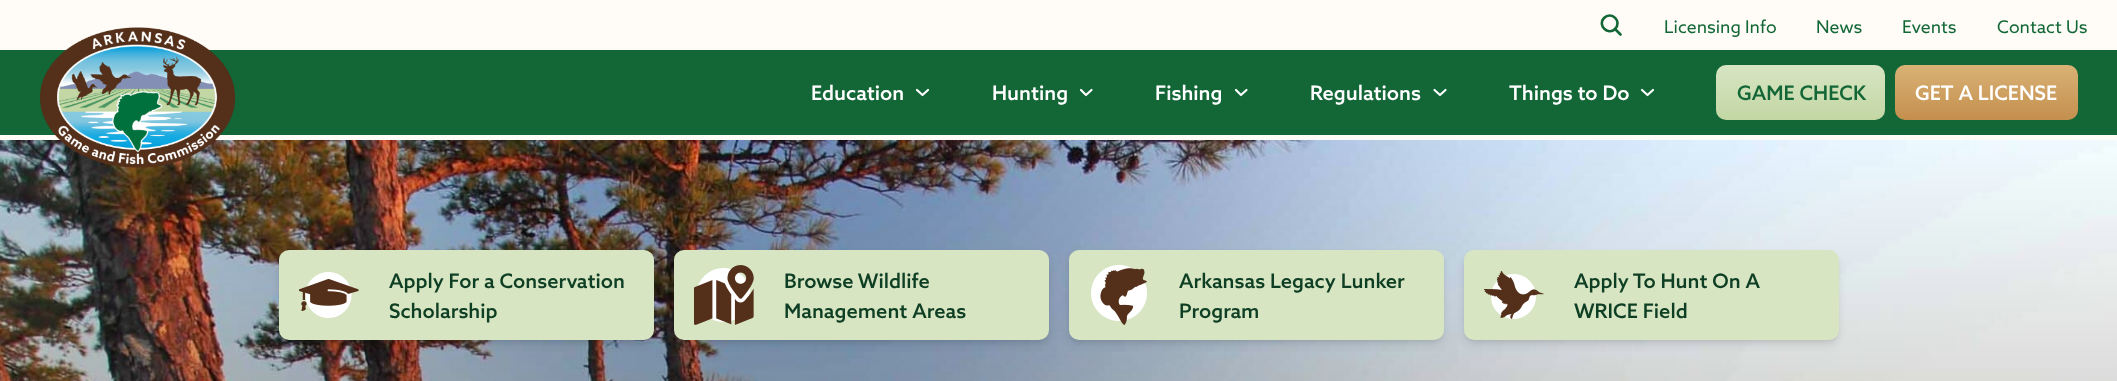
<svg xmlns="http://www.w3.org/2000/svg" width="2117" height="381">
<defs>
<linearGradient id="g1" gradientUnits="userSpaceOnUse" x1="1801" y1="65" x2="1801" y2="120"><stop offset="0" stop-color="#d7e5c3"/><stop offset="1" stop-color="#c3d7a4"/></linearGradient>
<linearGradient id="g2" gradientUnits="userSpaceOnUse" x1="1986" y1="65" x2="1986" y2="120"><stop offset="0" stop-color="#d9b275"/><stop offset="1" stop-color="#c48f4e"/></linearGradient>
</defs>
<rect width="100%" height="100%" fill="#fffcf7"/>
<path d="M1620.5 34.5l-5.5-5.5m0 0c7.5-7.5-3.5-18.5-11-11c-7 7 4 18 11 11z" fill="none" stroke="#136737" stroke-width="2.6" stroke-linecap="round" stroke-linejoin="round"/>
<text x="1664" y="33" style="font-family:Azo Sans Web;font-size:17.5px;fill:#136737">Licensing Info</text>
<text x="1816" y="33" style="font-family:Azo Sans Web;font-size:17.5px;fill:#136737">News</text>
<text x="1902" y="33" style="font-family:Azo Sans Web;font-size:17.5px;fill:#136737">Events</text>
<text x="1997" y="33" style="font-family:Azo Sans Web;font-size:17.5px;fill:#136737">Contact Us</text>
<rect y="50" width="2117" height="85" fill="#136737"/>
<image x="0" y="140" width="2117" height="241" href="media/2.png"/>
<image x="40" y="27" width="195" height="141" href="media/1.png"/>
<text x="811" y="100" style="font-family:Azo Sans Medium;font-size:20px;font-weight:500;fill:#fff">Education</text>
<path d="M928 90l-5.5 5l-5.5-5" fill="none" stroke="#fff" stroke-width="2.2" stroke-linecap="round" stroke-linejoin="round"/>
<text x="992" y="100" style="font-family:Azo Sans Medium;font-size:20px;font-weight:500;fill:#fff">Hunting</text>
<path d="M1091.5 90l-5.5 5l-5-5" fill="none" stroke="#fff" stroke-width="2.2" stroke-linecap="round" stroke-linejoin="round"/>
<text x="1155" y="100" style="font-family:Azo Sans Medium;font-size:20px;font-weight:500;fill:#fff">Fishing</text>
<path d="M1246.5 90l-5.5 5l-5-5" fill="none" stroke="#fff" stroke-width="2.2" stroke-linecap="round" stroke-linejoin="round"/>
<text x="1310" y="100" style="font-family:Azo Sans Medium;font-size:20px;font-weight:500;fill:#fff">Regulations</text>
<path d="M1445.5 90l-5.5 5l-5.5-5" fill="none" stroke="#fff" stroke-width="2.2" stroke-linecap="round" stroke-linejoin="round"/>
<text x="1509" y="100" style="font-family:Azo Sans Medium;font-size:20px;font-weight:500;fill:#fff">Things to Do</text>
<path d="M1653 90l-5.5 5l-5.5-5" fill="none" stroke="#fff" stroke-width="2.2" stroke-linecap="round" stroke-linejoin="round"/>
<rect x="1716" y="65" width="169" height="55" rx="10" fill="url(#g1)"/>
<text x="1737" y="100" style="font-family:Azo Sans Medium;font-size:20px;font-weight:500;fill:#136737">GAME CHECK</text>
<rect x="1895" y="65" width="183" height="55" rx="10" fill="url(#g2)"/>
<text x="1915" y="100" style="font-family:Azo Sans Medium;font-size:20px;font-weight:500;fill:#fff">GET A LICENSE</text>
<rect x="281" y="255" width="370" height="85" rx="8" fill="#0000001a" filter="blur(2.5px)"/>
<rect x="280" y="256" width="373" height="88" rx="9" fill="#0000001a" filter="blur(4px)"/>
<rect x="279" y="250" width="375" height="90" rx="10" fill="#d7e5c3"/>
<image x="299" y="272" width="60" height="46" href="media/3.png"/>
<text x="389" y="288" style="font-family:Azo Sans Medium;font-size:20px;font-weight:500;fill:#0e3e23">Apply For a Conservation</text>
<text x="389" y="318" style="font-family:Azo Sans Medium;font-size:20px;font-weight:500;fill:#0e3e23">Scholarship</text>
<rect x="676" y="255" width="370" height="85" rx="8" fill="#0000001a" filter="blur(2.5px)"/>
<rect x="675" y="256" width="373" height="88" rx="9" fill="#0000001a" filter="blur(4px)"/>
<rect x="674" y="250" width="375" height="90" rx="10" fill="#d7e5c3"/>
<image x="694" y="265" width="60" height="60" href="media/4.png"/>
<text x="784" y="288" style="font-family:Azo Sans Medium;font-size:20px;font-weight:500;fill:#0e3e23">Browse Wildlife</text>
<text x="784" y="318" style="font-family:Azo Sans Medium;font-size:20px;font-weight:500;fill:#0e3e23">Management Areas</text>
<rect x="1071" y="255" width="370" height="85" rx="8" fill="#0000001a" filter="blur(2.5px)"/>
<rect x="1070" y="256" width="373" height="88" rx="9" fill="#0000001a" filter="blur(4px)"/>
<rect x="1069" y="250" width="375" height="90" rx="10" fill="#d7e5c3"/>
<image x="1091" y="265" width="56" height="60" href="media/5.png"/>
<text x="1179" y="288" style="font-family:Azo Sans Medium;font-size:20px;font-weight:500;fill:#0e3e23">Arkansas Legacy Lunker</text>
<text x="1179" y="318" style="font-family:Azo Sans Medium;font-size:20px;font-weight:500;fill:#0e3e23">Program</text>
<rect x="1466" y="255" width="370" height="85" rx="8" fill="#0000001a" filter="blur(2.5px)"/>
<rect x="1465" y="256" width="373" height="88" rx="9" fill="#0000001a" filter="blur(4px)"/>
<rect x="1464" y="250" width="375" height="90" rx="10" fill="#d7e5c3"/>
<image x="1484" y="271" width="60" height="48" href="media/6.png"/>
<text x="1574" y="288" style="font-family:Azo Sans Medium;font-size:20px;font-weight:500;fill:#0e3e23">Apply To Hunt On A</text>
<text x="1574" y="318" style="font-family:Azo Sans Medium;font-size:20px;font-weight:500;fill:#0e3e23">WRICE Field</text>
</svg>
